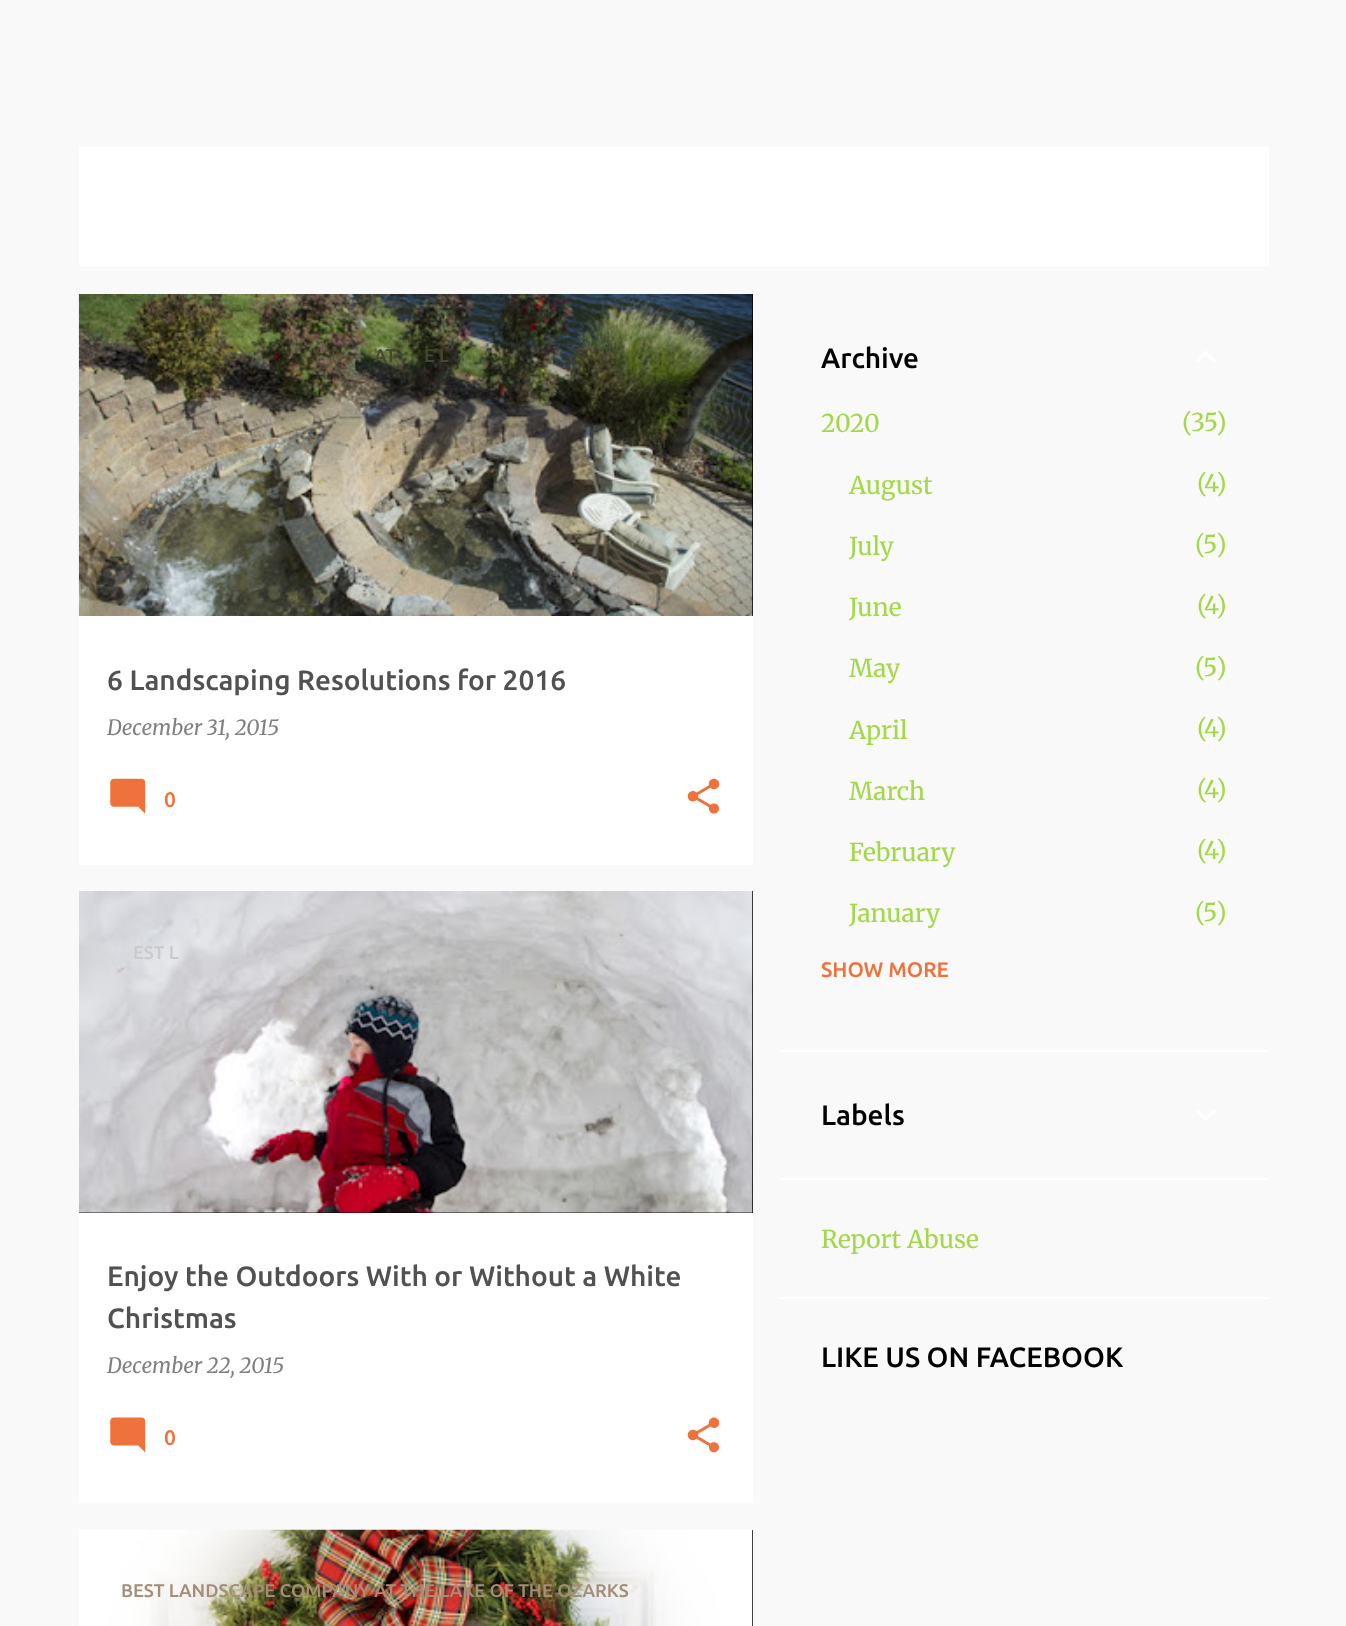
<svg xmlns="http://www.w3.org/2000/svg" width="1346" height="1626">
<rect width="100%" height="100%" fill="#f9f9f9"/>
<rect x="79" y="147" width="1190" height="119" fill="#fff"/>
<rect x="79" y="616" width="674" height="249" fill="#fff"/>
<rect x="752" y="294" width="1" height="322" fill="#000"/>
<image x="78" y="294" width="675" height="322" href="media/1.png"/>
<text x="374" y="362" style="font-family:Ubuntu;font-size:18.4px;font-weight:500;fill:#45482d">AT</text>
<text x="424" y="362" style="font-family:Ubuntu;font-size:18.4px;font-weight:500;fill:#45482d">E L</text>
<text x="107" y="735" style="font-family:Merriweather;font-size:21px;font-style:italic;fill:#808080">December 31, 2015</text>
<text x="107" y="690" style="font-family:Ubuntu;font-size:28px;font-weight:500;fill:#515151">6 Landscaping Resolutions for 2016</text>
<image x="110" y="778" width="36" height="36" href="media/2.png"/>
<text x="164" y="807" style="font-family:Ubuntu;font-size:21px;font-weight:500;fill:#ef713c">0</text>
<image x="687" y="778" width="33" height="36" href="media/3.png"/>
<rect x="79" y="1213" width="674" height="290" fill="#fff"/>
<rect x="79" y="891" width="674" height="322" fill="#000"/>
<image x="79" y="891" width="674" height="322" href="media/4.png"/>
<text x="133" y="959" style="font-family:Ubuntu;font-size:18.4px;font-weight:500;fill:#cacacc">EST L</text>
<text x="107" y="1373" style="font-family:Merriweather;font-size:21px;font-style:italic;fill:#808080">December 22, 2015</text>
<text x="107" y="1286" style="font-family:Ubuntu;font-size:28px;font-weight:500;fill:#515151">Enjoy the Outdoors With or Without a White</text>
<text x="107" y="1328" style="font-family:Ubuntu;font-size:28px;font-weight:500;fill:#515151">Christmas</text>
<image x="110" y="1417" width="36" height="36" href="media/5.png"/>
<text x="164" y="1445" style="font-family:Ubuntu;font-size:21px;font-weight:500;fill:#ef713c">0</text>
<image x="687" y="1417" width="33" height="36" href="media/6.png"/>
<rect x="752" y="1530" width="1" height="96" fill="#000"/>
<image x="79" y="1529" width="674" height="97" href="media/7.png"/>
<text x="121" y="1597" style="font-family:Ubuntu;font-size:18.4px;font-weight:500;fill:#a48e78">BEST LANDSCAPE COMPANY AT THE LAKE OF THE OZARKS</text>
<text x="821" y="368" style="font-family:Ubuntu;font-size:28px;font-weight:500;fill:#000">Archive</text>
<image x="1196" y="350" width="20" height="13" href="media/8.png"/>
<text x="821" y="432" style="font-family:Merriweather;font-size:24.5px;font-weight:300;fill:#a3d848">2020</text>
<text x="1182" y="431" style="font-family:Merriweather;font-size:24.5px;font-weight:300;fill:#a3d848">(</text>
<text x="1191" y="431" style="font-family:Merriweather;font-size:24.5px;font-weight:300;fill:#a3d848">35</text>
<text x="1216" y="431" style="font-family:Merriweather;font-size:24.5px;font-weight:300;fill:#a3d848">)</text>
<text x="849" y="494" style="font-family:Merriweather;font-size:24.5px;font-weight:300;fill:#a3d848">August</text>
<text x="1197" y="492" style="font-family:Merriweather;font-size:24.5px;font-weight:300;fill:#a3d848">(</text>
<text x="1204" y="492" style="font-family:Merriweather;font-size:24.5px;font-weight:300;fill:#a3d848">4</text>
<text x="1216" y="492" style="font-family:Merriweather;font-size:24.5px;font-weight:300;fill:#a3d848">)</text>
<text x="849" y="555" style="font-family:Merriweather;font-size:24.5px;font-weight:300;fill:#a3d848">July</text>
<text x="1195" y="553" style="font-family:Merriweather;font-size:24.5px;font-weight:300;fill:#a3d848">(</text>
<text x="1203" y="553" style="font-family:Merriweather;font-size:24.5px;font-weight:300;fill:#a3d848">5</text>
<text x="1216" y="553" style="font-family:Merriweather;font-size:24.5px;font-weight:300;fill:#a3d848">)</text>
<text x="849" y="616" style="font-family:Merriweather;font-size:24.5px;font-weight:300;fill:#a3d848">June</text>
<text x="1197" y="614" style="font-family:Merriweather;font-size:24.5px;font-weight:300;fill:#a3d848">(</text>
<text x="1204" y="614" style="font-family:Merriweather;font-size:24.5px;font-weight:300;fill:#a3d848">4</text>
<text x="1216" y="614" style="font-family:Merriweather;font-size:24.5px;font-weight:300;fill:#a3d848">)</text>
<text x="849" y="677" style="font-family:Merriweather;font-size:24.5px;font-weight:300;fill:#a3d848">May</text>
<text x="1195" y="676" style="font-family:Merriweather;font-size:24.5px;font-weight:300;fill:#a3d848">(</text>
<text x="1203" y="676" style="font-family:Merriweather;font-size:24.5px;font-weight:300;fill:#a3d848">5</text>
<text x="1216" y="676" style="font-family:Merriweather;font-size:24.5px;font-weight:300;fill:#a3d848">)</text>
<text x="849" y="739" style="font-family:Merriweather;font-size:24.5px;font-weight:300;fill:#a3d848">April</text>
<text x="1197" y="737" style="font-family:Merriweather;font-size:24.5px;font-weight:300;fill:#a3d848">(</text>
<text x="1204" y="737" style="font-family:Merriweather;font-size:24.5px;font-weight:300;fill:#a3d848">4</text>
<text x="1216" y="737" style="font-family:Merriweather;font-size:24.5px;font-weight:300;fill:#a3d848">)</text>
<text x="849" y="800" style="font-family:Merriweather;font-size:24.5px;font-weight:300;fill:#a3d848">March</text>
<text x="1197" y="798" style="font-family:Merriweather;font-size:24.5px;font-weight:300;fill:#a3d848">(</text>
<text x="1204" y="798" style="font-family:Merriweather;font-size:24.5px;font-weight:300;fill:#a3d848">4</text>
<text x="1216" y="798" style="font-family:Merriweather;font-size:24.5px;font-weight:300;fill:#a3d848">)</text>
<text x="849" y="861" style="font-family:Merriweather;font-size:24.5px;font-weight:300;fill:#a3d848">February</text>
<text x="1197" y="859" style="font-family:Merriweather;font-size:24.5px;font-weight:300;fill:#a3d848">(</text>
<text x="1204" y="859" style="font-family:Merriweather;font-size:24.5px;font-weight:300;fill:#a3d848">4</text>
<text x="1216" y="859" style="font-family:Merriweather;font-size:24.5px;font-weight:300;fill:#a3d848">)</text>
<text x="849" y="922" style="font-family:Merriweather;font-size:24.5px;font-weight:300;fill:#a3d848">January</text>
<text x="1195" y="921" style="font-family:Merriweather;font-size:24.5px;font-weight:300;fill:#a3d848">(</text>
<text x="1203" y="921" style="font-family:Merriweather;font-size:24.5px;font-weight:300;fill:#a3d848">5</text>
<text x="1216" y="921" style="font-family:Merriweather;font-size:24.5px;font-weight:300;fill:#a3d848">)</text>
<text x="821" y="977" style="font-family:Ubuntu;font-size:21px;font-weight:500;fill:#ef713c">SHOW MORE</text>
<rect x="779" y="1050" width="490" height="2" fill="#fff"/>
<text x="821" y="1125" style="font-family:Ubuntu;font-size:28px;font-weight:500;fill:#000">Labels</text>
<image x="1196" y="1109" width="20" height="12" href="media/9.png"/>
<rect x="779" y="1178" width="490" height="2" fill="#fff"/>
<text x="821" y="1248" style="font-family:Merriweather;font-size:24.5px;font-weight:300;fill:#a3d848">Report Abuse</text>
<rect x="779" y="1297" width="490" height="2" fill="#fff"/>
<text x="821" y="1367" style="font-family:Ubuntu;font-size:28px;font-weight:500;fill:#000">LIKE US ON FACEBOOK</text>
</svg>
